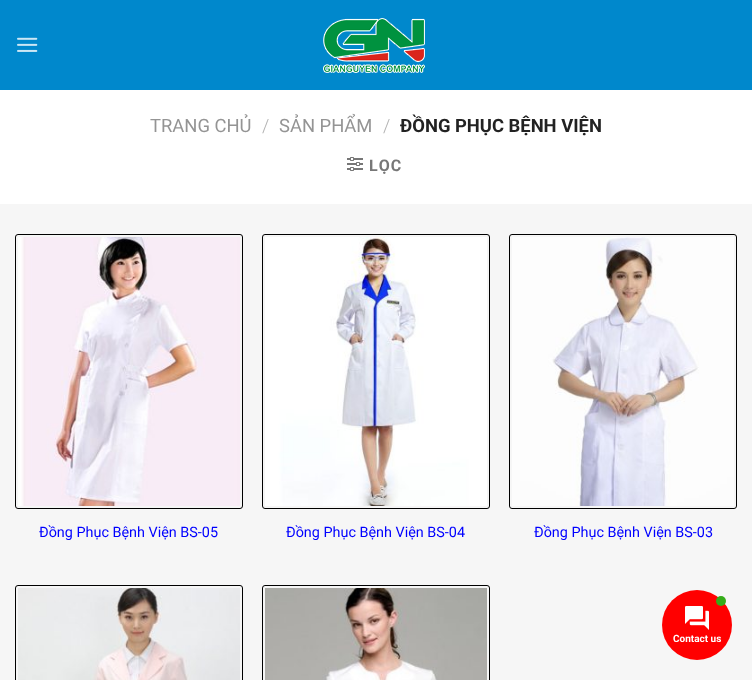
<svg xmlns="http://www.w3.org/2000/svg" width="752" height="680">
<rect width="100%" height="100%" fill="#fff"/>
<rect width="752" height="90" fill="#08c"/>
<image x="17" y="37" width="21" height="15" href="media/1.png"/>
<image x="323" y="18" width="102" height="55" href="media/2.png"/>
<text x="150" y="132" style="font-family:Roboto;font-size:18.4px;fill:#949494">TRANG CHỦ</text>
<text x="262" y="132" style="font-family:Roboto;font-size:18.4px;font-weight:300;fill:#b2b2b2">/</text>
<text x="279" y="132" style="font-family:Roboto;font-size:18.4px;fill:#949494">SẢN PHẨM</text>
<text x="383" y="132" style="font-family:Roboto;font-size:18.4px;font-weight:300;fill:#b2b2b2">/</text>
<text x="400" y="132" style="font-family:Roboto;font-size:18.4px;font-weight:bold;fill:#222">ĐỒNG PHỤC BỆNH VIỆN</text>
<image x="347" y="157" width="16" height="14" href="media/3.png"/>
<text x="369" y="171" style="font-family:Roboto;font-size:16px;font-weight:bold;letter-spacing:1px;fill:#777">LỌC</text>
<rect y="204" width="752" height="476" fill="#f6f6f6"/>
<rect x="15.5" y="234.5" width="227" height="274" rx="2.5" fill="none" stroke="#000"/>
<image x="18" y="237" width="222" height="269" href="media/4.png"/>
<text x="39" y="537" style="font-family:Roboto;font-size:14.4px;fill:#00f">Đồng Phục Bệnh Viện BS-05</text>
<rect x="262.5" y="234.5" width="227" height="274" rx="2.5" fill="none" stroke="#000"/>
<image x="265" y="237" width="222" height="269" href="media/5.png"/>
<text x="286" y="537" style="font-family:Roboto;font-size:14.4px;fill:#00f">Đồng Phục Bệnh Viện BS-04</text>
<rect x="509.5" y="234.5" width="227" height="274" rx="2.5" fill="none" stroke="#000"/>
<image x="512" y="237" width="222" height="269" href="media/6.png"/>
<text x="534" y="537" style="font-family:Roboto;font-size:14.4px;fill:#00f">Đồng Phục Bệnh Viện BS-03</text>
<rect x="15.5" y="585.5" width="227" height="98" rx="2.5" fill="none" stroke="#000"/>
<image x="18" y="588" width="222" height="92" href="media/7.png"/>
<rect x="262.5" y="585.5" width="227" height="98" rx="2.5" fill="none" stroke="#000"/>
<image x="265" y="588" width="222" height="92" href="media/8.png"/>
<circle cx="697" cy="625" r="35" fill="#f00"/>
<circle cx="721" cy="601" r="5" fill="#35ac19"/>
<image x="685" y="606" width="24" height="24" href="media/9.png"/>
<text x="673" y="642" style="font-family:Roboto;font-size:10px;font-weight:bold;fill:#fff">Contact us</text>
</svg>
